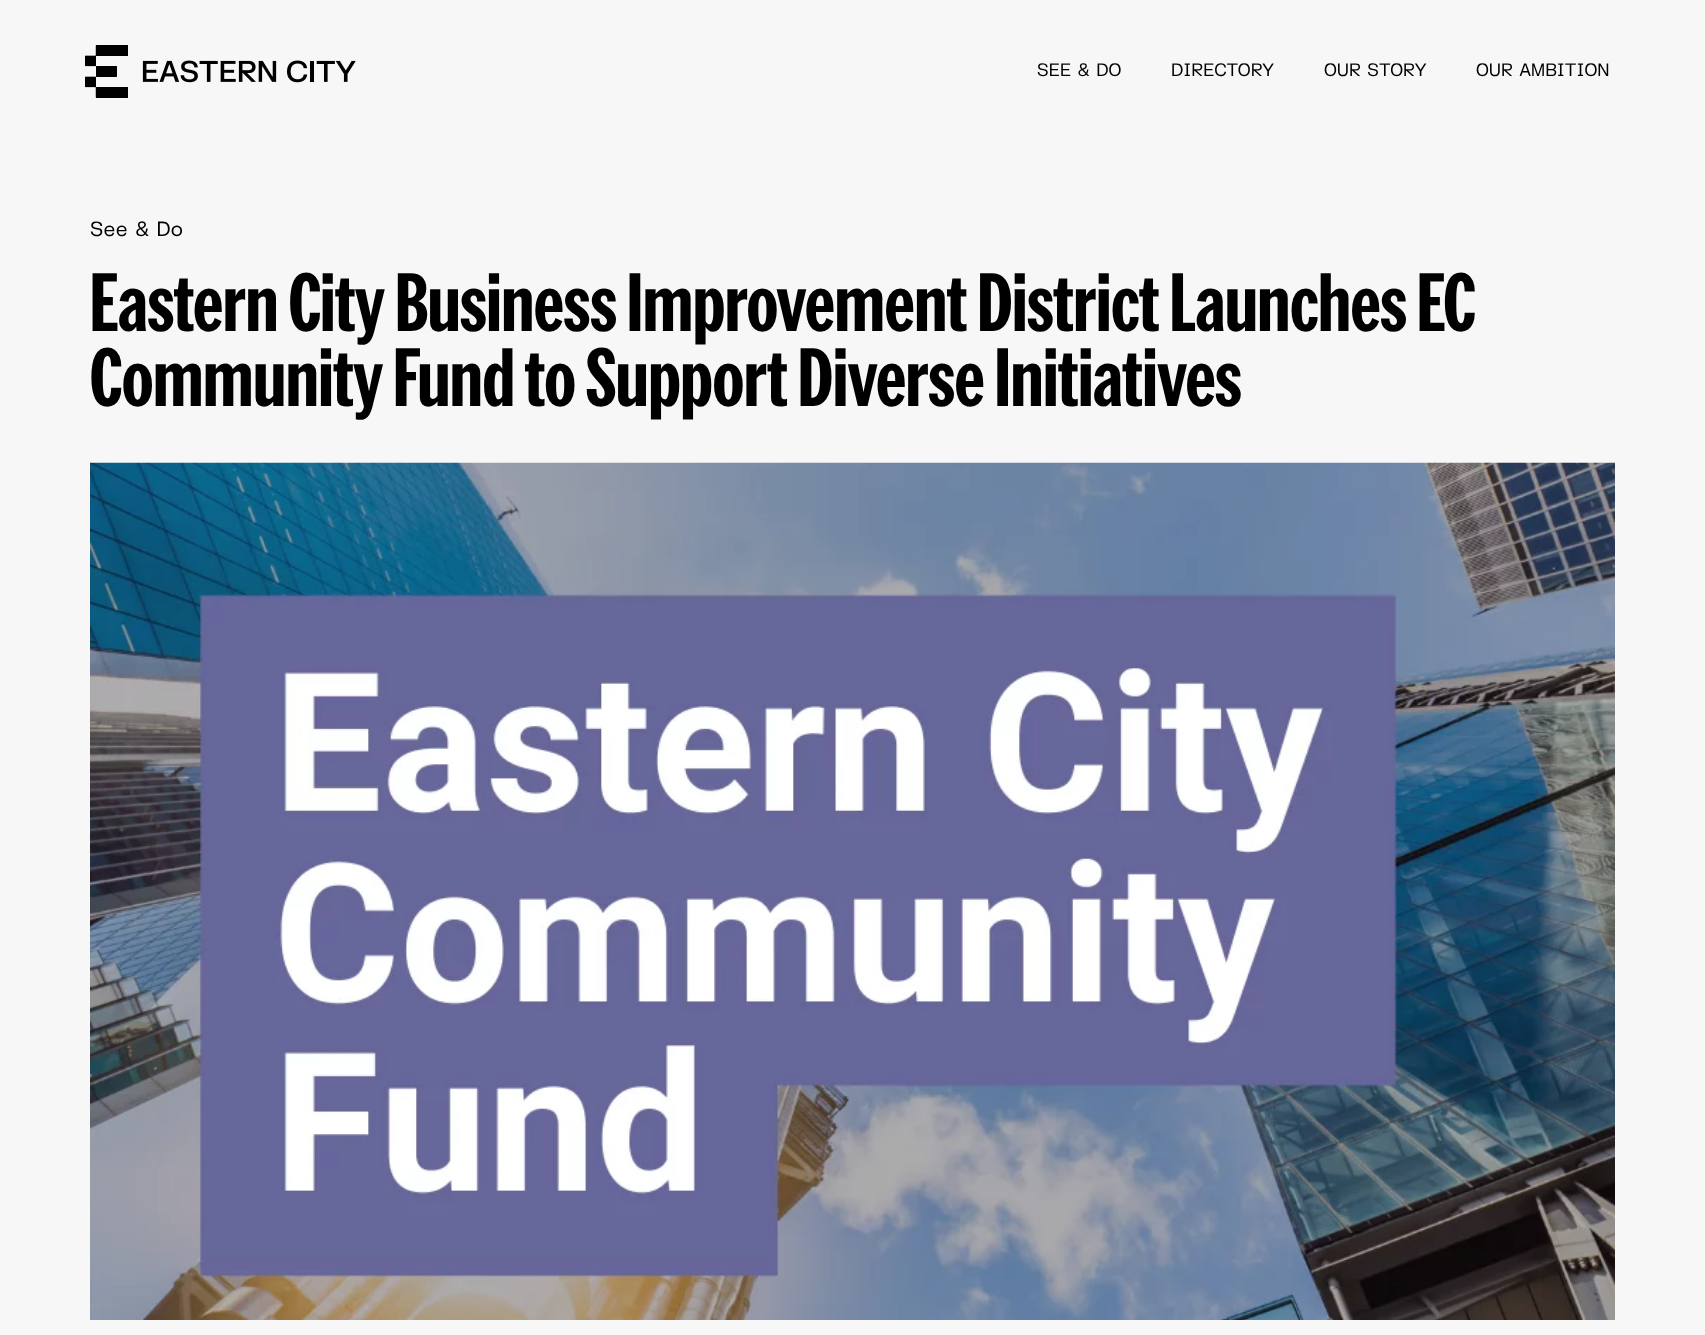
<svg xmlns="http://www.w3.org/2000/svg" width="1705" height="1335">
<rect width="100%" height="100%" fill="#f7f7f7"/>
<image x="85" y="45" width="271" height="53" href="media/1.png"/>
<text x="1037" y="76" style="font-family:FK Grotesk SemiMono;font-size:17.5px;fill:#000">SEE &amp; DO</text>
<text x="1171" y="76" style="font-family:FK Grotesk SemiMono;font-size:17.5px;fill:#000">DIRECTORY</text>
<text x="1324" y="76" style="font-family:FK Grotesk SemiMono;font-size:17.5px;fill:#000">OUR STORY</text>
<text x="1476" y="76" style="font-family:FK Grotesk SemiMono;font-size:17.5px;fill:#000">OUR AMBITION</text>
<text x="90" y="236" style="font-family:FK Grotesk SemiMono;font-size:20px;fill:#000">See &amp; Do</text>
<text x="90" y="331" style="font-family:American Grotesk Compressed;font-size:80px;font-weight:bold;fill:#000">Eastern City Business Improvement District Launches EC</text>
<text x="90" y="406" style="font-family:American Grotesk Compressed;font-size:80px;font-weight:bold;fill:#000">Community Fund to Support Diverse Initiatives</text>
<image x="90" y="462" width="1525" height="858" href="media/2.png"/>
</svg>
